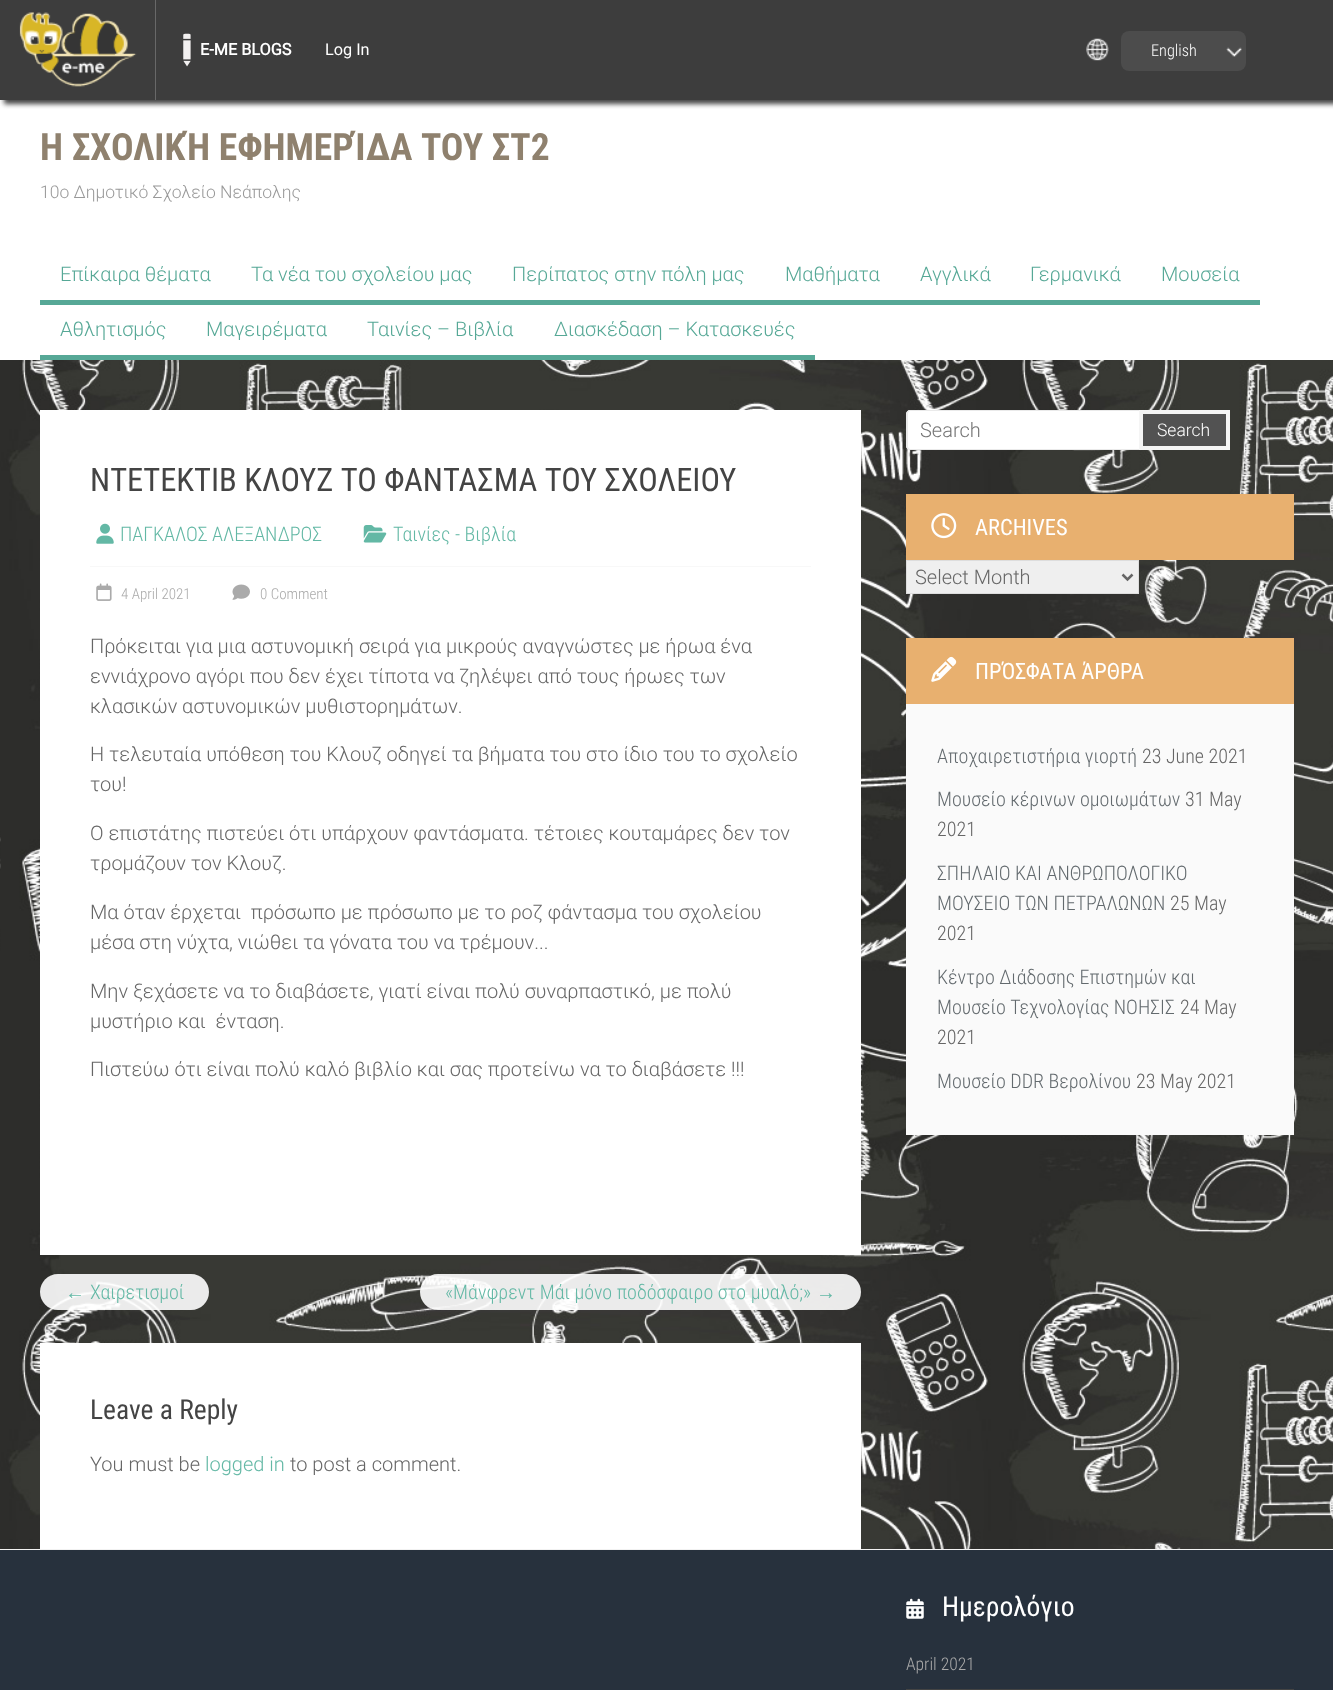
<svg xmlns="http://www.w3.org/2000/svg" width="1333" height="1690">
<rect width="100%" height="100%" fill="#fff"/>
<image x="0" y="360" width="1333" height="1189" href="media/1.png"/>
<rect x="4" y="4" width="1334" height="100" fill="#444" filter="blur(2.5px)"/>
<rect width="1333" height="100" fill="#3d3d3d"/>
<image x="19" y="12" width="118" height="75" href="media/2.png"/>
<rect x="155" width="1" height="100" fill="#686868"/>
<image x="183" y="33" width="8" height="34" href="media/3.png"/>
<text x="200" y="55" style="font-family:Roboto;font-size:16.25px;font-weight:bold;fill:#fff">E-ME BLOGS</text>
<text x="325" y="55" style="font-family:Roboto;font-size:16.25px;fill:#fff">Log In</text>
<image x="1086" y="38" width="23" height="23" href="media/4.png"/>
<rect x="1121" y="31" width="125" height="40" rx="8" fill="#4c4c4c"/>
<text x="1151" y="56" style="font-family:Roboto Condensed;font-size:16.25px;font-weight:300;fill:#fff">English</text>
<image x="1226" y="47" width="16" height="10" href="media/5.png"/>
<text x="40" y="160" style="font-family:Roboto Condensed;font-size:37.5px;font-weight:bold;fill:#8f816e">Η ΣΧΟΛΙΚΉ ΕΦΗΜΕΡΊΔΑ ΤΟΥ ΣΤ2</text>
<text x="40" y="198" style="font-family:Roboto;font-size:17.5px;font-weight:300;fill:#999">10ο Δημοτικό Σχολείο Νεάπολης</text>
<rect x="40" y="300" width="1220" height="5" fill="#56a896"/>
<text x="60" y="281" style="font-family:Roboto;font-size:20px;font-weight:300;fill:#56a896">Επίκαιρα θέματα</text>
<text x="251" y="281" style="font-family:Roboto;font-size:20px;font-weight:300;fill:#56a896">Τα νέα του σχολείου μας</text>
<text x="512" y="281" style="font-family:Roboto;font-size:20px;font-weight:300;fill:#56a896">Περίπατος στην πόλη μας</text>
<text x="785" y="281" style="font-family:Roboto;font-size:20px;font-weight:300;fill:#56a896">Μαθήματα</text>
<text x="920" y="281" style="font-family:Roboto;font-size:20px;font-weight:300;fill:#56a896">Αγγλικά</text>
<text x="1030" y="281" style="font-family:Roboto;font-size:20px;font-weight:300;fill:#56a896">Γερμανικά</text>
<text x="1161" y="281" style="font-family:Roboto;font-size:20px;font-weight:300;fill:#56a896">Μουσεία</text>
<rect x="40" y="355" width="775" height="5" fill="#56a896"/>
<text x="60" y="336" style="font-family:Roboto;font-size:20px;font-weight:300;fill:#56a896">Αθλητισμός</text>
<text x="206" y="336" style="font-family:Roboto;font-size:20px;font-weight:300;fill:#56a896">Μαγειρέματα</text>
<text x="367" y="336" style="font-family:Roboto;font-size:20px;font-weight:300;fill:#56a896">Ταινίες – Βιβλία</text>
<text x="554" y="336" style="font-family:Roboto;font-size:20px;font-weight:300;fill:#56a896">Διασκέδαση – Κατασκευές</text>
<rect x="40" y="410" width="821" height="845" fill="#fff"/>
<text x="90" y="491" style="font-family:Roboto Condensed;font-size:32.5px;fill:#444">ΝΤΕΤΕΚΤΙΒ ΚΛΟΥΖ ΤΟ ΦΑΝΤΑΣΜΑ ΤΟΥ ΣΧΟΛΕΙΟΥ</text>
<image x="96" y="523" width="18" height="21" href="media/6.png"/>
<text x="120" y="541" style="font-family:Roboto Condensed;font-size:20px;font-weight:300;fill:#63b8a5">ΠΑΓΚΑΛΟΣ ΑΛΕΞΑΝΔΡΟΣ</text>
<image x="363" y="525" width="24" height="18" href="media/7.png"/>
<text x="393" y="541" style="font-family:Roboto Condensed;font-size:20px;font-weight:300;fill:#63b8a5">Ταινίες - Βιβλία</text>
<rect x="90" y="566" width="721" height="1" fill="#f8f8f8"/>
<image x="96" y="583" width="16" height="18" href="media/8.png"/>
<text x="121" y="599" style="font-family:Roboto Condensed;font-size:15px;font-weight:300;fill:#aaa">4 April 2021</text>
<image x="232" y="584" width="18" height="16" href="media/9.png"/>
<text x="260" y="599" style="font-family:Roboto Condensed;font-size:15px;font-weight:300;fill:#aaa">0 Comment</text>
<text x="90" y="653" style="font-family:Roboto;font-size:20px;font-weight:300;fill:#666">Πρόκειται για μια αστυνομική σειρά για μικρούς αναγνώστες με ήρωα ένα</text>
<text x="90" y="683" style="font-family:Roboto;font-size:20px;font-weight:300;fill:#666">εννιάχρονο αγόρι που δεν έχει τίποτα να ζηλέψει από τους ήρωες των</text>
<text x="90" y="713" style="font-family:Roboto;font-size:20px;font-weight:300;fill:#666">κλασικών αστυνομικών μυθιστορημάτων.</text>
<text x="90" y="761" style="font-family:Roboto;font-size:20px;font-weight:300;fill:#666">Η τελευταία υπόθεση του Κλουζ οδηγεί τα βήματα του στο ίδιο του το σχολείο</text>
<text x="90" y="791" style="font-family:Roboto;font-size:20px;font-weight:300;fill:#666">του!</text>
<text x="90" y="840" style="font-family:Roboto;font-size:20px;font-weight:300;fill:#666">Ο επιστάτης πιστεύει ότι υπάρχουν φαντάσματα. τέτοιες κουταμάρες δεν τον</text>
<text x="90" y="870" style="font-family:Roboto;font-size:20px;font-weight:300;fill:#666">τρομάζουν τον Κλουζ.</text>
<text x="90" y="919" style="font-family:Roboto;font-size:20px;font-weight:300;fill:#666" xml:space="preserve">Μα όταν έρχεται  πρόσωπο με πρόσωπο με το ροζ φάντασμα του σχολείου</text>
<text x="90" y="949" style="font-family:Roboto;font-size:20px;font-weight:300;fill:#666">μέσα στη νύχτα, νιώθει τα γόνατα του να τρέμουν...</text>
<text x="90" y="998" style="font-family:Roboto;font-size:20px;font-weight:300;fill:#666">Μην ξεχάσετε να το διαβάσετε, γιατί είναι πολύ συναρπαστικό, με πολύ</text>
<text x="90" y="1028" style="font-family:Roboto;font-size:20px;font-weight:300;fill:#666" xml:space="preserve">μυστήριο και  ένταση.</text>
<text x="90" y="1076" style="font-family:Roboto;font-size:20px;font-weight:300;fill:#666">Πιστεύω ότι είναι πολύ καλό βιβλίο και σας προτείνω να το διαβάσετε !!!</text>
<path d="M58 1274h27v36h-27c-10 0-18-8-18-18c0-10 8-18 18-18z" fill="#ffffffe6"/>
<text x="65" y="1299" style="font-family:Liberation Sans;font-size:20px;fill:#63b8a5">←</text>
<path d="M85 1274h106c10 0 18 8 18 18c0 10-8 18-18 18h-106z" fill="#ffffffe6"/>
<text x="90" y="1299" style="font-family:Roboto Condensed;font-size:20px;font-weight:300;fill:#63b8a5">Χαιρετισμοί</text>
<path d="M438 1274h378v36h-378c-10 0-18-8-18-18c0-10 8-18 18-18z" fill="#ffffffe6"/>
<text x="445" y="1299" style="font-family:Roboto Condensed;font-size:20px;font-weight:300;fill:#63b8a5">«Μάνφρεντ Μάι μόνο ποδόσφαιρο στο μυαλό;»</text>
<path d="M816 1274h27c10 0 18 8 18 18c0 10-8 18-18 18h-27z" fill="#ffffffe6"/>
<text x="816" y="1299" style="font-family:Liberation Sans;font-size:20px;fill:#63b8a5">→</text>
<rect x="40" y="1343" width="821" height="206" fill="#fff"/>
<text x="90" y="1419" style="font-family:Roboto Condensed;font-size:27.5px;fill:#444">Leave a Reply</text>
<text x="90" y="1471" style="font-family:Roboto;font-size:20px;font-weight:300;fill:#666">You must be</text>
<text x="205" y="1471" style="font-family:Roboto;font-size:20px;font-weight:300;fill:#63b8a5">logged in</text>
<text x="290" y="1471" style="font-family:Roboto;font-size:20px;font-weight:300;fill:#666">to post a comment.</text>
<path d="M910 410h229v40h-229c-2 0-4-2-4-4v-32c0-2 2-4 4-4z" fill="#fff"/>
<path d="M910 410h229v40h-229c-2 0-4-2-4-4v-32c0-2 2-4 4-4zm0 1h229v38h-229c-1 0-2-1-2-3v-32c0-2 1-3 2-3z" fill="#eaeaea" fill-rule="evenodd"/>
<text x="920" y="437" style="font-family:Roboto;font-size:20px;font-weight:300;fill:#757575">Search</text>
<rect x="1141" y="412" width="87" height="36" fill="#525252" stroke="#f5f5f5" stroke-width="4"/>
<text x="1157" y="436" style="font-family:Roboto;font-size:17.5px;font-weight:300;fill:#fff">Search</text>
<rect x="906" y="494" width="388" height="66" fill="#e8b06f"/>
<image x="931" y="513" width="26" height="26" href="media/10.png"/>
<text x="975" y="535" style="font-family:Roboto Condensed;font-size:22.5px;fill:#fff">ARCHIVES</text>
<rect x="906.5" y="560.5" width="232" height="33" fill="#efefef" stroke="#ddd"/>
<path d="M1122.5 574.5l5 5l5-5" fill="none" stroke="#666" stroke-width="2.5"/>
<text x="915" y="584" style="font-family:Roboto;font-size:20px;font-weight:300;fill:#666">Select Month</text>
<rect x="906" y="638" width="388" height="66" fill="#e8b06f"/>
<image x="931" y="656" width="26" height="26" href="media/11.png"/>
<text x="975" y="679" style="font-family:Roboto Condensed;font-size:22.5px;fill:#fff">ΠΡΌΣΦΑΤΑ ΆΡΘΡΑ</text>
<rect x="906" y="704" width="388" height="431" fill="#fafafa"/>
<text x="937" y="763" style="font-family:Roboto Condensed;font-size:20px;font-weight:300;fill:#636a6e">Αποχαιρετιστήρια γιορτή</text>
<text x="1142" y="763" style="font-family:Roboto Condensed;font-size:20px;font-weight:300;fill:#666">23 June 2021</text>
<text x="937" y="806" style="font-family:Roboto Condensed;font-size:20px;font-weight:300;fill:#636a6e">Μουσείο κέρινων ομοιωμάτων</text>
<text x="1185" y="806" style="font-family:Roboto Condensed;font-size:20px;font-weight:300;fill:#666">31 May</text>
<text x="937" y="836" style="font-family:Roboto Condensed;font-size:20px;font-weight:300;fill:#666">2021</text>
<text x="937" y="880" style="font-family:Roboto Condensed;font-size:20px;font-weight:300;fill:#636a6e">ΣΠΗΛΑΙΟ ΚΑΙ ΑΝΘΡΩΠΟΛΟΓΙΚΟ</text>
<text x="937" y="910" style="font-family:Roboto Condensed;font-size:20px;font-weight:300;fill:#636a6e">ΜΟΥΣΕΙΟ ΤΩΝ ΠΕΤΡΑΛΩΝΩΝ</text>
<text x="1170" y="910" style="font-family:Roboto Condensed;font-size:20px;font-weight:300;fill:#666">25 May</text>
<text x="937" y="940" style="font-family:Roboto Condensed;font-size:20px;font-weight:300;fill:#666">2021</text>
<text x="937" y="984" style="font-family:Roboto Condensed;font-size:20px;font-weight:300;fill:#636a6e">Κέντρο Διάδοσης Επιστημών και</text>
<text x="937" y="1014" style="font-family:Roboto Condensed;font-size:20px;font-weight:300;fill:#636a6e">Μουσείο Τεχνολογίας ΝΟΗΣΙΣ</text>
<text x="1180" y="1014" style="font-family:Roboto Condensed;font-size:20px;font-weight:300;fill:#666">24 May</text>
<text x="937" y="1044" style="font-family:Roboto Condensed;font-size:20px;font-weight:300;fill:#666">2021</text>
<text x="937" y="1088" style="font-family:Roboto Condensed;font-size:20px;font-weight:300;fill:#636a6e">Μουσείο DDR Βερολίνου</text>
<text x="1136" y="1088" style="font-family:Roboto Condensed;font-size:20px;font-weight:300;fill:#666">23 May 2021</text>
<rect y="1550" width="1333" height="140" fill="#27313d"/>
<rect y="1549" width="1333" height="1" fill="#f2f2f2"/>
<image x="906" y="1598" width="18" height="21" href="media/12.png"/>
<text x="942" y="1616" style="font-family:Roboto Condensed;font-size:27.5px;fill:#fff">Ημερολόγιο</text>
<text x="906" y="1670" style="font-family:Roboto Condensed;font-size:17.5px;font-weight:300;fill:#aaa">April 2021</text>
<rect x="906" y="1689" width="388" height="1" fill="#444"/>
</svg>
